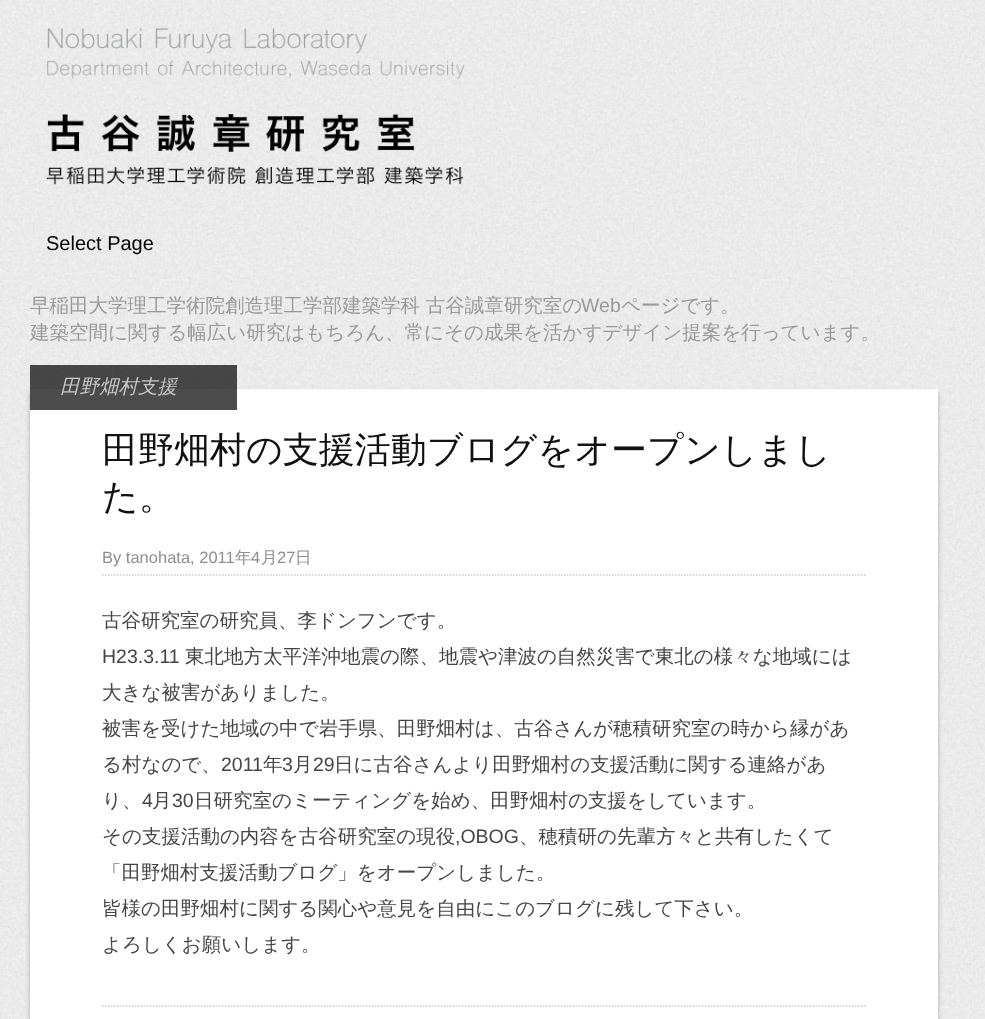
<svg xmlns="http://www.w3.org/2000/svg" width="985" height="1019">
<rect width="100%" height="100%" fill="#fff"/>
<image x="0" y="0" width="985" height="1019" href="media/1.png"/>
<image x="46" y="28" width="419" height="157" href="media/2.png"/>
<text x="46" y="250" style="font-family:Liberation Sans;font-size:20px;fill:#000">Select Page</text>
<text x="30" y="312" style="font-family:WenQuanYi Zen Hei;font-size:19.5px;font-weight:500;fill:#999">早稲田大学理工学術院創造理工学部建築学科 古谷誠章研究室の</text>
<text x="581" y="312" style="font-family:Liberation Sans;font-size:19.5px;fill:#999">Web</text>
<text x="621" y="312" style="font-family:WenQuanYi Zen Hei;font-size:19.5px;font-weight:500;fill:#999">ページです。</text>
<text x="30" y="339" style="font-family:WenQuanYi Zen Hei;font-size:19.5px;font-weight:500;fill:#999">建築空間に関する幅広い研究はもちろん、常にその成果を活かすデザイン提案を行っています。</text>
<rect x="30" y="392" width="908" height="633" fill="#aaa" filter="blur(2px)"/>
<rect x="30" y="389" width="908" height="630" fill="#fff"/>
<rect x="30" y="365" width="207" height="45" fill="#000000b3"/>
<text x="60" y="393" style="font-family:WenQuanYi Zen Hei;font-size:19.5px;font-weight:500;font-style:italic;fill:#c8c8c8">田野畑村支援</text>
<text x="102" y="462" style="font-family:WenQuanYi Zen Hei;font-size:36px;font-weight:500;fill:#111">田野畑村の支援活動ブログをオープンしまし</text>
<text x="102" y="509" style="font-family:WenQuanYi Zen Hei;font-size:36px;font-weight:500;fill:#111">た。</text>
<path d="M102 575h763.5" fill="none" stroke="#ccc" stroke-width="1.5" stroke-dasharray="1.5 1.5"/>
<text x="102" y="563" style="font-family:Liberation Sans;font-size:16.5px;fill:#8e8e8e">By tanohata, 2011</text>
<text x="235" y="563" style="font-family:WenQuanYi Zen Hei;font-size:16.5px;font-weight:500;fill:#8e8e8e">年</text>
<text x="251" y="563" style="font-family:Liberation Sans;font-size:16.5px;fill:#8e8e8e">4</text>
<text x="261" y="563" style="font-family:WenQuanYi Zen Hei;font-size:16.5px;font-weight:500;fill:#8e8e8e">月</text>
<text x="277" y="563" style="font-family:Liberation Sans;font-size:16.5px;fill:#8e8e8e">27</text>
<text x="295" y="563" style="font-family:WenQuanYi Zen Hei;font-size:16.5px;font-weight:500;fill:#8e8e8e">日</text>
<text x="102" y="627" style="font-family:WenQuanYi Zen Hei;font-size:19.5px;font-weight:500;fill:#454545">古谷研究室の研究員、李ドンフンです。</text>
<text x="102" y="663" style="font-family:Liberation Sans;font-size:19.5px;fill:#454545">H23.3.11</text>
<text x="185" y="663" style="font-family:WenQuanYi Zen Hei;font-size:19.5px;font-weight:500;fill:#454545">東北地方太平洋沖地震の際、地震や津波の自然災害で東北の様々な地域には</text>
<text x="102" y="699" style="font-family:WenQuanYi Zen Hei;font-size:19.5px;font-weight:500;fill:#454545">大きな被害がありました。</text>
<text x="102" y="735" style="font-family:WenQuanYi Zen Hei;font-size:19.5px;font-weight:500;fill:#454545">被害を受けた地域の中で岩手県、田野畑村は、古谷さんが穂積研究室の時から縁があ</text>
<text x="102" y="771" style="font-family:WenQuanYi Zen Hei;font-size:19.5px;font-weight:500;fill:#454545">る村なので、</text>
<text x="221" y="771" style="font-family:Liberation Sans;font-size:19.5px;fill:#454545">2011</text>
<text x="263" y="771" style="font-family:WenQuanYi Zen Hei;font-size:19.5px;font-weight:500;fill:#454545">年</text>
<text x="282" y="771" style="font-family:Liberation Sans;font-size:19.5px;fill:#454545">3</text>
<text x="293" y="771" style="font-family:WenQuanYi Zen Hei;font-size:19.5px;font-weight:500;fill:#454545">月</text>
<text x="313" y="771" style="font-family:Liberation Sans;font-size:19.5px;fill:#454545">29</text>
<text x="334" y="771" style="font-family:WenQuanYi Zen Hei;font-size:19.5px;font-weight:500;fill:#454545">日に古谷さんより田野畑村の支援活動に関する連絡があ</text>
<text x="102" y="807" style="font-family:WenQuanYi Zen Hei;font-size:19.5px;font-weight:500;fill:#454545">り、</text>
<text x="142" y="807" style="font-family:Liberation Sans;font-size:19.5px;fill:#454545">4</text>
<text x="152" y="807" style="font-family:WenQuanYi Zen Hei;font-size:19.5px;font-weight:500;fill:#454545">月</text>
<text x="172" y="807" style="font-family:Liberation Sans;font-size:19.5px;fill:#454545">30</text>
<text x="194" y="807" style="font-family:WenQuanYi Zen Hei;font-size:19.5px;font-weight:500;fill:#454545">日研究室のミーティングを始め、田野畑村の支援をしています。</text>
<text x="102" y="843" style="font-family:WenQuanYi Zen Hei;font-size:19.5px;font-weight:500;fill:#454545">その支援活動の内容を古谷研究室の現役</text>
<text x="455" y="843" style="font-family:Liberation Sans;font-size:19.5px;fill:#454545">,OBOG</text>
<text x="519" y="843" style="font-family:WenQuanYi Zen Hei;font-size:19.5px;font-weight:500;fill:#454545">、穂積研の先輩方々と共有したくて</text>
<text x="102" y="879" style="font-family:WenQuanYi Zen Hei;font-size:19.5px;font-weight:500;fill:#454545">「田野畑村支援活動ブログ」をオープンしました。</text>
<text x="102" y="915" style="font-family:WenQuanYi Zen Hei;font-size:19.5px;font-weight:500;fill:#454545">皆様の田野畑村に関する関心や意見を自由にこのブログに残して下さい。</text>
<text x="102" y="951" style="font-family:WenQuanYi Zen Hei;font-size:19.5px;font-weight:500;fill:#454545">よろしくお願いします。</text>
<path d="M102 1006h763.5" fill="none" stroke="#ccc" stroke-width="1.5" stroke-dasharray="1.5 1.5"/>
</svg>
